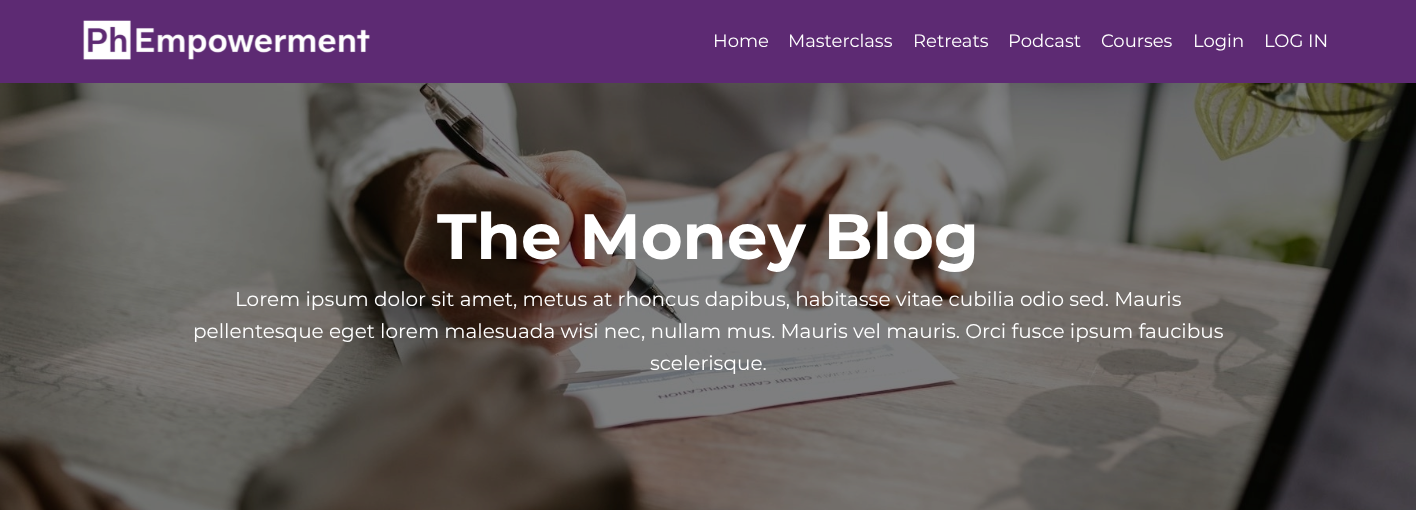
<svg xmlns="http://www.w3.org/2000/svg" width="1416" height="511">
<rect width="100%" height="100%" fill="#fff"/>
<rect width="1416" height="83" fill="#5d2a73"/>
<image x="83" y="20" width="287" height="40" href="media/1.png"/>
<text x="713" y="47" style="font-family:Montserrat;font-size:18px;fill:#fff">Home</text>
<text x="788" y="47" style="font-family:Montserrat;font-size:18px;fill:#fff">Masterclass</text>
<text x="913" y="47" style="font-family:Montserrat;font-size:18px;fill:#fff">Retreats</text>
<text x="1008" y="47" style="font-family:Montserrat;font-size:18px;fill:#fff">Podcast</text>
<text x="1101" y="47" style="font-family:Montserrat;font-size:18px;fill:#fff">Courses</text>
<text x="1193" y="47" style="font-family:Montserrat;font-size:18px;fill:#fff">Login</text>
<text x="1264" y="47" style="font-family:Montserrat;font-size:18px;fill:#fff">LOG IN</text>
<image x="0" y="83" width="1416" height="427" href="media/2.png"/>
<text x="437" y="259" style="font-family:Montserrat;font-size:64px;font-weight:bold;fill:#fff">The Money Blog</text>
<text x="235" y="306" style="font-family:Montserrat;font-size:20px;fill:#fff">Lorem ipsum dolor sit amet, metus at rhoncus dapibus, habitasse vitae cubilia odio sed. Mauris</text>
<text x="193" y="338" style="font-family:Montserrat;font-size:20px;fill:#fff">pellentesque eget lorem malesuada wisi nec, nullam mus. Mauris vel mauris. Orci fusce ipsum faucibus</text>
<text x="650" y="370" style="font-family:Montserrat;font-size:20px;fill:#fff">scelerisque.</text>
</svg>
